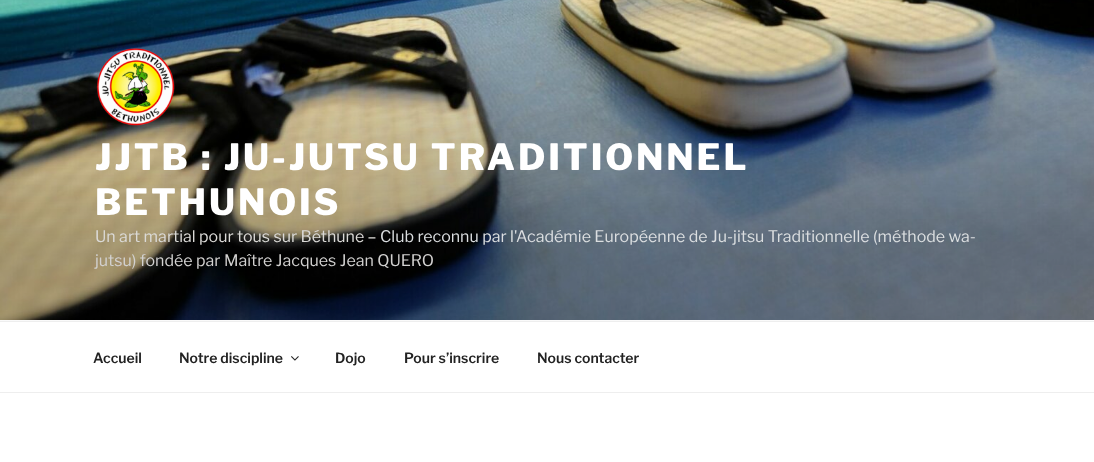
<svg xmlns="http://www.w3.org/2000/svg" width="1094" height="462">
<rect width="100%" height="100%" fill="#fff"/>
<rect y="320" width="1094" height="1" fill="#fafafa"/>
<image x="0" y="0" width="1094" height="320" href="media/1.png"/>
<image x="96" y="48" width="79" height="78" href="media/2.png"/>
<text x="95" y="170" style="font-family:Libre Franklin;font-size:36px;font-weight:100;letter-spacing:2.9px;fill:#fff">JJTB : JU-JUTSU TRADITIONNEL</text>
<text x="95" y="215" style="font-family:Libre Franklin;font-size:36px;font-weight:100;letter-spacing:2.9px;fill:#fff">BETHUNOIS</text>
<text x="95" y="242" style="font-family:'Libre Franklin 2';font-size:16px;font-weight:100;fill:#dbdad7">Un art martial pour tous sur Béthune –</text>
<text x="380" y="242" style="font-family:'Libre Franklin 2';font-size:16px;font-weight:100;fill:#dbdee0">Club reconnu par l'Académie Européenne de Ju-jitsu Traditionnelle (méthode wa-</text>
<text x="95" y="266" style="font-family:'Libre Franklin 2';font-size:16px;font-weight:100;fill:#d2d1d0">jutsu) fondée par Maître Jacques Jean QUERO</text>
<rect y="321" width="1094" height="1" fill="#eee"/>
<rect y="392" width="1094" height="1" fill="#eee"/>
<text x="93" y="363" style="font-family:'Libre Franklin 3';font-size:14px;font-weight:100;fill:#222">Accueil</text>
<text x="179" y="363" style="font-family:'Libre Franklin 3';font-size:14px;font-weight:100;fill:#222">Notre discipline</text>
<image x="291" y="356" width="8" height="5" href="media/3.png"/>
<text x="335" y="363" style="font-family:'Libre Franklin 3';font-size:14px;font-weight:100;fill:#222">Dojo</text>
<text x="404" y="363" style="font-family:'Libre Franklin 3';font-size:14px;font-weight:100;fill:#222">Pour s’inscrire</text>
<text x="537" y="363" style="font-family:'Libre Franklin 3';font-size:14px;font-weight:100;fill:#222">Nous contacter</text>
</svg>
